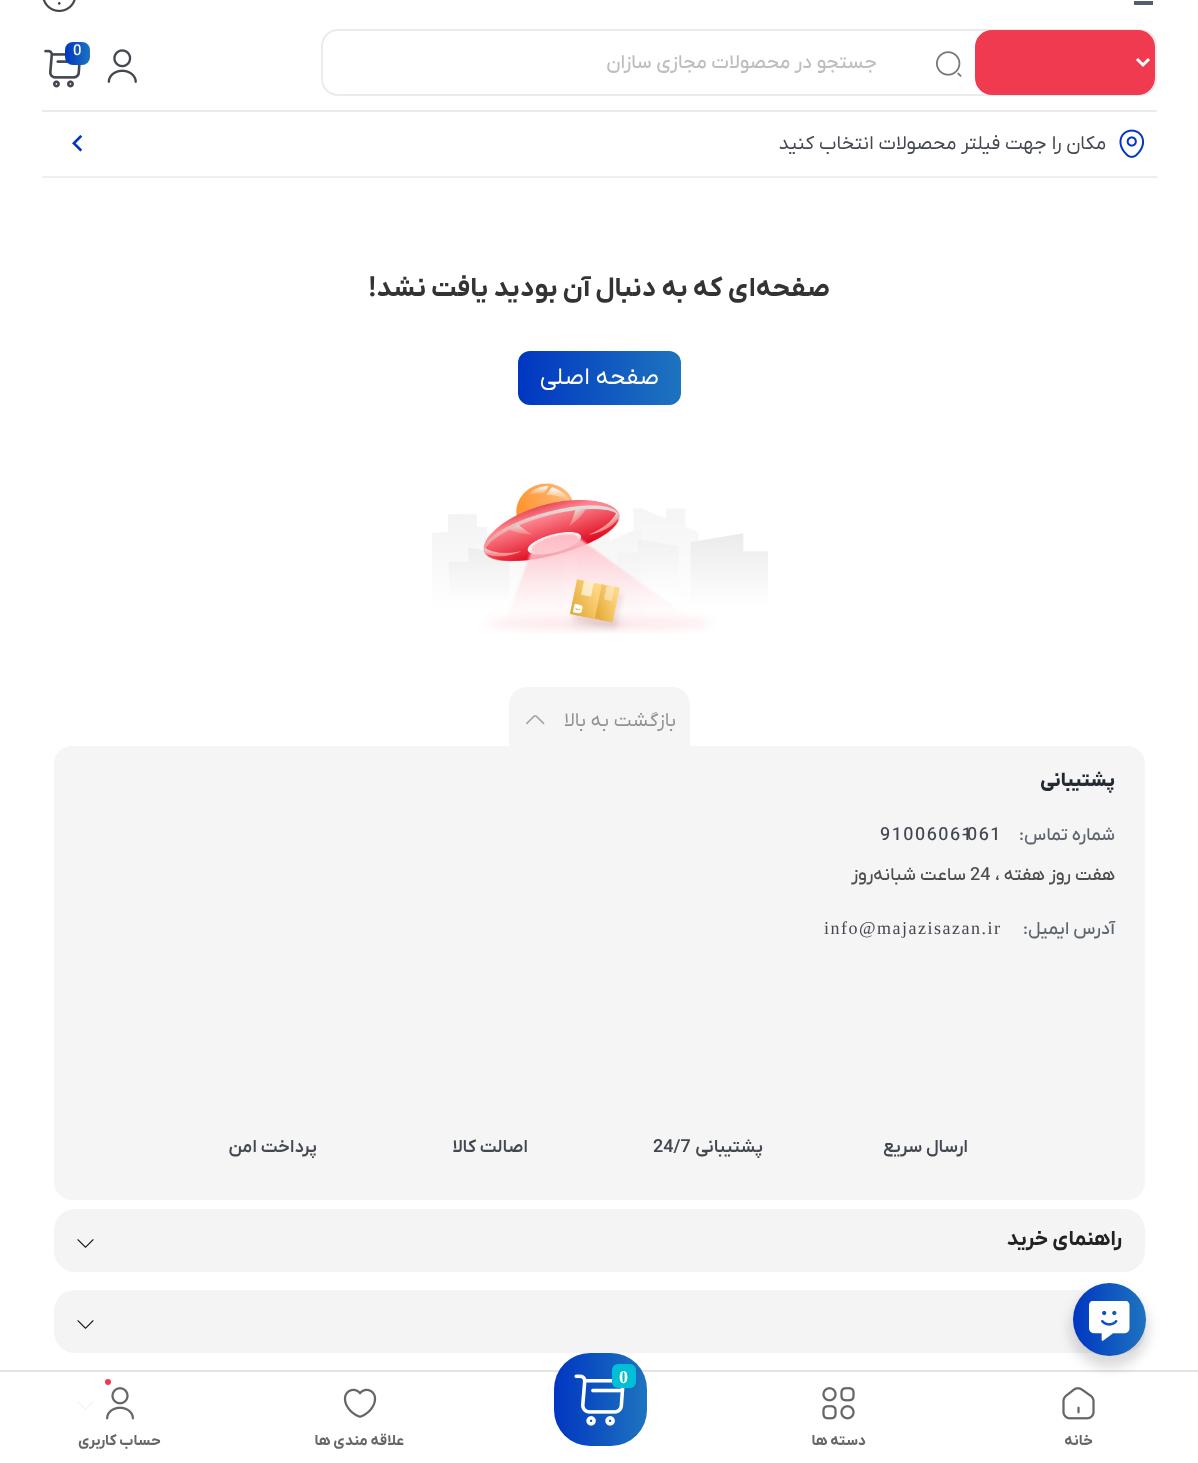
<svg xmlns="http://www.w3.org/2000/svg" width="1198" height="1463">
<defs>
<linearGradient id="g1" gradientUnits="userSpaceOnUse" x1="65" y1="53" x2="90" y2="53"><stop offset="0" stop-color="#0036c1"/><stop offset="1" stop-color="#1e74bf"/></linearGradient>
<linearGradient id="g2" gradientUnits="userSpaceOnUse" x1="518" y1="378" x2="681" y2="378"><stop offset="0" stop-color="#0036c1"/><stop offset="1" stop-color="#1e74bf"/></linearGradient>
<linearGradient id="g3" gradientUnits="userSpaceOnUse" x1="1073" y1="1319" x2="1146" y2="1319"><stop offset="0" stop-color="#0036c1"/><stop offset="1" stop-color="#1e74bf"/></linearGradient>
<linearGradient id="g4" gradientUnits="userSpaceOnUse" x1="554" y1="1400" x2="647" y2="1400"><stop offset="0" stop-color="#0036c1"/><stop offset="1" stop-color="#1e74bf"/></linearGradient>
</defs>
<rect width="100%" height="100%" fill="#fff"/>
<rect x="1134" y="1" width="19" height="4" fill="#545d6e"/>
<image x="42" y="0" width="34" height="12" href="media/1.png"/>
<rect x="42" y="110" width="1115" height="2" fill="#ebebef"/>
<image x="107" y="49" width="30" height="34" href="media/2.png"/>
<image x="44" y="49" width="37" height="39" href="media/3.png"/>
<rect x="65" y="42" width="25" height="23" rx="8" fill="url(#g1)"/>
<text x="73" y="55" style="font-family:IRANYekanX;font-size:15px;font-weight:500;fill:#fff">0</text>
<rect x="322" y="30" width="834" height="65" rx="16" fill="none" stroke="#ebebeb" stroke-width="2"/>
<rect x="975" y="30" width="180" height="65" rx="17" fill="#ef3a4f"/>
<path d="M1137 59l6 6l6-6" fill="none" stroke="#fff" stroke-width="3"/>
<image x="936" y="51" width="26" height="26" href="media/4.png"/>
<text x="877" y="68" style="font-family:IRANYekanX;font-size:19.5px;font-weight:500;direction:rtl;fill:#bebebe">جستجو در محصولات مجازی سازان</text>
<rect x="42" y="176" width="1115" height="2" fill="#eee"/>
<image x="1119" y="129" width="26" height="29" href="media/5.png"/>
<text x="1106" y="149" style="font-family:IRANYekanX;font-size:19.5px;direction:rtl;fill:#424750">مکان را جهت فیلتر محصولات انتخاب کنید</text>
<image x="72" y="135" width="11" height="17" href="media/6.png"/>
<text x="830" y="296" style="font-family:IRANYekanX;font-size:27px;font-weight:bold;direction:rtl;fill:#333">صفحه‌ای که به دنبال آن بودید یافت نشد!</text>
<rect x="518" y="351" width="163" height="54" rx="12" fill="url(#g2)"/>
<text x="659" y="384" style="font-family:IRANYekanX;font-size:24px;direction:rtl;fill:#fff">صفحه اصلی</text>
<image x="432" y="483" width="336" height="151" href="media/7.png"/>
<path d="M527 687h145c10 0 18 8 18 18v41h-181v-41c0-10 8-18 18-18z" fill="#f5f5f5"/>
<text x="676" y="726" style="font-family:IRANYekanX;font-size:19.5px;direction:rtl;fill:#919191">بازگشت به بالا</text>
<image x="526" y="715" width="19" height="10" href="media/8.png"/>
<rect x="54" y="746" width="1091" height="454" rx="18" fill="#f5f5f5"/>
<text x="1115" y="786" style="font-family:IRANYekanX;font-size:19.5px;font-weight:800;direction:rtl;fill:#232933">پشتیبانی</text>
<text x="1115" y="840" style="font-family:IRANYekanX;font-size:18px;font-weight:500;direction:rtl;fill:#5d6670">شماره تماس:</text>
<text x="880" y="840" style="font-family:IRANYekanX;font-size:18px;font-weight:500;letter-spacing:1.5px;fill:#424750">91006061</text>
<text x="967" y="840" style="font-family:IRANYekanX;font-size:18px;font-weight:500;letter-spacing:1.5px;fill:#424750">061</text>
<text x="962" y="840" style="font-family:IRANYekanX;font-size:18px;font-weight:500;letter-spacing:1.5px;fill:#424750">-</text>
<text x="1115" y="880" style="font-family:IRANYekanX;font-size:18px;font-weight:500;direction:rtl;fill:#4d4d4d">هفت روز هفته ،</text>
<text x="970" y="880" style="font-family:IRANYekanX;font-size:18px;font-weight:500;fill:#4d4d4d">24</text>
<text x="966" y="880" style="font-family:IRANYekanX;font-size:18px;font-weight:500;direction:rtl;fill:#4d4d4d">ساعت شبانه‌روز</text>
<text x="1115" y="934" style="font-family:IRANYekanX;font-size:18px;font-weight:500;direction:rtl;fill:#5d6670">آدرس ایمیل:</text>
<text x="824" y="934" style="font-family:Liberation Serif;font-size:18px;letter-spacing:1.5px;fill:#424750">info@majazisazan.ir</text>
<text x="968" y="1152" style="font-family:IRANYekanX;font-size:18px;font-weight:600;direction:rtl;fill:#424750">ارسال سریع</text>
<text x="763" y="1152" style="font-family:IRANYekanX;font-size:18px;font-weight:600;direction:rtl;fill:#424750">پشتیبانی</text>
<text x="653" y="1152" style="font-family:IRANYekanX;font-size:18px;font-weight:600;fill:#424750">24/7</text>
<text x="528" y="1152" style="font-family:IRANYekanX;font-size:18px;font-weight:600;direction:rtl;fill:#424750">اصالت کالا</text>
<text x="317" y="1152" style="font-family:IRANYekanX;font-size:18px;font-weight:600;direction:rtl;fill:#424750">پرداخت امن</text>
<rect x="54" y="1209" width="1091" height="63" rx="21" fill="#f4f4f4"/>
<text x="1122" y="1245" style="font-family:IRANYekanX;font-size:21px;font-weight:bold;direction:rtl;fill:#222">راهنمای خرید</text>
<image x="77" y="1239" width="17" height="9" href="media/9.png"/>
<rect x="54" y="1290" width="1091" height="63" rx="21" fill="#f4f4f4"/>
<image x="77" y="1320" width="17" height="9" href="media/9.png"/>
<image x="77" y="1401" width="17" height="9" href="media/10.png"/>
<rect y="1370" width="1198" height="2" fill="#e3e3e3"/>
<rect x="1070" y="1289" width="79" height="79" rx="39.5" fill="#00000024" filter="blur(6px)"/>
<circle cx="1109.5" cy="1319.5" r="36.5" fill="url(#g3)"/>
<image x="1089" y="1301" width="41" height="40" href="media/11.png"/>
<rect x="554" y="1353" width="93" height="93" rx="36" fill="url(#g4)"/>
<image x="574" y="1374" width="51" height="52" href="media/12.png"/>
<rect x="612" y="1364" width="24" height="24" rx="6" fill="#00bfd6"/>
<text x="619" y="1383" style="font-family:Liberation Serif;font-size:18px;font-weight:bold;fill:#fff">0</text>
<image x="1062" y="1387" width="33" height="33" href="media/13.png"/>
<text x="1093" y="1445" style="font-family:IRANYekanX;font-size:15px;font-weight:bold;direction:rtl;fill:#666">خانه</text>
<image x="822" y="1387" width="33" height="33" href="media/14.png"/>
<text x="866" y="1445" style="font-family:IRANYekanX;font-size:15px;font-weight:bold;direction:rtl;fill:#666">دسته ها</text>
<image x="343" y="1388" width="34" height="30" href="media/15.png"/>
<text x="404" y="1445" style="font-family:IRANYekanX;font-size:15px;font-weight:bold;direction:rtl;fill:#666">علاقه مندی ها</text>
<image x="106" y="1387" width="28" height="33" href="media/16.png"/>
<circle cx="108" cy="1382" r="4.5" fill="#ef394e" stroke="#fff" stroke-width="3"/>
<text x="161" y="1445" style="font-family:IRANYekanX;font-size:15px;font-weight:bold;direction:rtl;fill:#666">حساب کاربری</text>
</svg>
